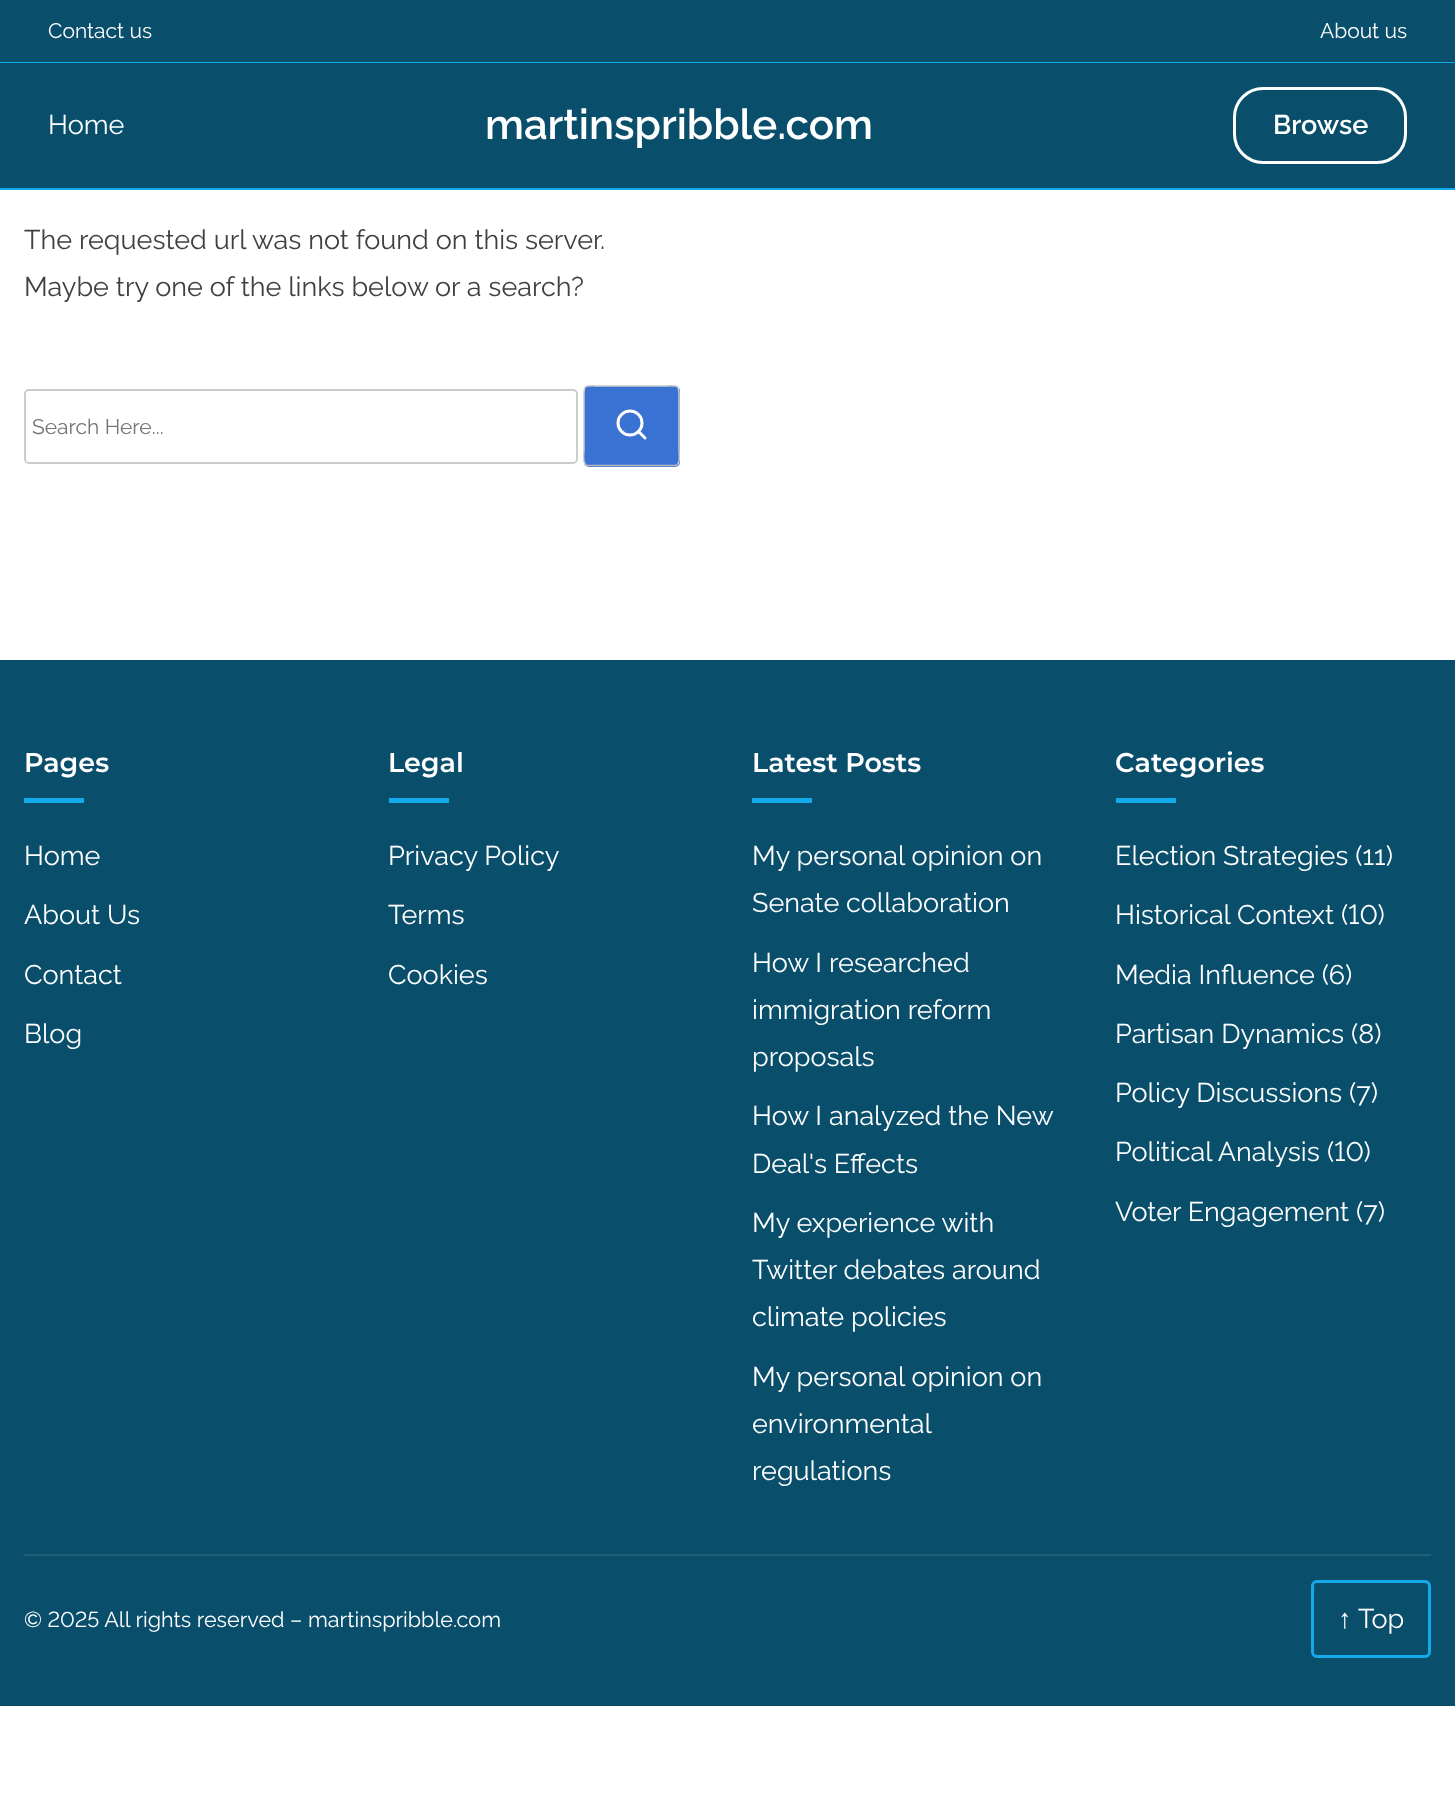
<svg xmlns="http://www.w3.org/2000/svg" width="1455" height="1795">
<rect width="100%" height="100%" fill="#fff"/>
<rect width="1455" height="62" fill="#094e6b"/>
<rect y="62" width="1455" height="1" fill="#14aaea"/>
<text x="48" y="38" style="font-family:Raleway;font-size:21px;fill:#fff">Contact us</text>
<text x="1320" y="38" style="font-family:Raleway;font-size:21px;fill:#fff">About us</text>
<rect y="63" width="1455" height="125" fill="#094e6b"/>
<rect y="188" width="1455" height="2" fill="#14aaea"/>
<text x="48" y="134" style="font-family:Raleway;font-size:27px;fill:#fff">Home</text>
<text x="485" y="139" style="font-family:Raleway;font-size:42px;font-weight:600;fill:#fff">martinspribble.com</text>
<rect x="1234.5" y="88.5" width="171" height="74" rx="28.5" fill="none" stroke="#fff" stroke-width="3"/>
<text x="1273" y="134" style="font-family:Raleway;font-size:27px;font-weight:600;fill:#fff">Browse</text>
<text x="24" y="249" style="font-family:Raleway;font-size:27px;fill:#404040">The requested url was not found on this server.</text>
<text x="24" y="296" style="font-family:Raleway;font-size:27px;fill:#404040">Maybe try one of the links below or a search?</text>
<rect x="25" y="390" width="552" height="73" rx="4" fill="none" stroke="#ccc" stroke-width="2"/>
<text x="32" y="434" style="font-family:Raleway;font-size:21px;fill:#757575">Search Here...</text>
<rect x="584" y="386" width="96" height="81" rx="5" fill="#3a72d3"/>
<path d="M677.5 464.5l-2 1h-88l-2-1" fill="none" stroke="#bbb" stroke-width="1.5"/>
<path d="M585.5 464.5c-3-2.5-1.5-14-1.5-14.5v-48c0-19-2-16 18.5-16h58c20.5 0 18.5-3 18.5 16v48c0 .5 1.5 12-1.5 14.5" fill="none" stroke="#ccc" stroke-width="1.5"/>
<circle cx="630" cy="423" r="12" fill="none" stroke="#fff" stroke-width="3"/>
<path d="M645 438l-6.5-6.5" fill="none" stroke="#fff" stroke-width="3" stroke-linecap="round" stroke-linejoin="round"/>
<rect y="660" width="1455" height="1046" fill="#094e6b"/>
<text x="24" y="772" style="font-family:Montserrat;font-size:27px;font-weight:600;fill:#fff">Pages</text>
<rect x="24" y="798" width="60" height="5" fill="#14aaea"/>
<text x="24" y="865" style="font-family:Raleway;font-size:27px;fill:#fff">Home</text>
<text x="24" y="924" style="font-family:Raleway;font-size:27px;fill:#fff">About Us</text>
<text x="24" y="984" style="font-family:Raleway;font-size:27px;fill:#fff">Contact</text>
<text x="24" y="1043" style="font-family:Raleway;font-size:27px;fill:#fff">Blog</text>
<text x="388" y="772" style="font-family:Montserrat;font-size:27px;font-weight:600;fill:#fff">Legal</text>
<rect x="389" y="798" width="60" height="5" fill="#14aaea"/>
<text x="388" y="865" style="font-family:Raleway;font-size:27px;fill:#fff">Privacy Policy</text>
<text x="388" y="924" style="font-family:Raleway;font-size:27px;fill:#fff">Terms</text>
<text x="388" y="984" style="font-family:Raleway;font-size:27px;fill:#fff">Cookies</text>
<text x="752" y="772" style="font-family:Montserrat;font-size:27px;font-weight:600;fill:#fff">Latest Posts</text>
<rect x="752" y="798" width="60" height="5" fill="#14aaea"/>
<text x="752" y="865" style="font-family:Raleway;font-size:27px;fill:#fff">My personal opinion on</text>
<text x="752" y="912" style="font-family:Raleway;font-size:27px;fill:#fff">Senate collaboration</text>
<text x="752" y="972" style="font-family:Raleway;font-size:27px;fill:#fff">How I researched</text>
<text x="752" y="1019" style="font-family:Raleway;font-size:27px;fill:#fff">immigration reform</text>
<text x="752" y="1066" style="font-family:Raleway;font-size:27px;fill:#fff">proposals</text>
<text x="752" y="1125" style="font-family:Raleway;font-size:27px;fill:#fff">How I analyzed the New</text>
<text x="752" y="1173" style="font-family:Raleway;font-size:27px;fill:#fff">Deal's Effects</text>
<text x="752" y="1232" style="font-family:Raleway;font-size:27px;fill:#fff">My experience with</text>
<text x="752" y="1279" style="font-family:Raleway;font-size:27px;fill:#fff">Twitter debates around</text>
<text x="752" y="1326" style="font-family:Raleway;font-size:27px;fill:#fff">climate policies</text>
<text x="752" y="1386" style="font-family:Raleway;font-size:27px;fill:#fff">My personal opinion on</text>
<text x="752" y="1433" style="font-family:Raleway;font-size:27px;fill:#fff">environmental</text>
<text x="752" y="1480" style="font-family:Raleway;font-size:27px;fill:#fff">regulations</text>
<text x="1115" y="772" style="font-family:Montserrat;font-size:27px;font-weight:600;fill:#fff">Categories</text>
<rect x="1116" y="798" width="60" height="5" fill="#14aaea"/>
<text x="1115" y="865" style="font-family:Raleway;font-size:27px;fill:#fff">Election Strategies (11)</text>
<text x="1115" y="924" style="font-family:Raleway;font-size:27px;fill:#fff">Historical Context</text>
<text x="1341" y="924" style="font-family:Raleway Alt;font-size:27px;fill:#fff">(10)</text>
<text x="1115" y="984" style="font-family:Raleway;font-size:27px;fill:#fff">Media Influence (6)</text>
<text x="1115" y="1043" style="font-family:Raleway;font-size:27px;fill:#fff">Partisan Dynamics (8)</text>
<text x="1115" y="1102" style="font-family:Raleway;font-size:27px;fill:#fff">Policy Discussions (7)</text>
<text x="1115" y="1161" style="font-family:Raleway;font-size:27px;fill:#fff">Political Analysis</text>
<text x="1327" y="1161" style="font-family:Raleway Alt;font-size:27px;fill:#fff">(10)</text>
<text x="1115" y="1221" style="font-family:Raleway;font-size:27px;fill:#fff">Voter Engagement (7)</text>
<rect x="24" y="1554" width="1407" height="2" fill="#22607a"/>
<text x="24" y="1627" style="font-family:Raleway Alt;font-size:21.6px;fill:#fff">© 2025 All rights reserved –</text>
<text x="308" y="1627" style="font-family:Raleway;font-size:21.6px;fill:#fff">martinspribble.com</text>
<rect x="1312.5" y="1581.5" width="117" height="75" rx="4.5" fill="none" stroke="#14aaea" stroke-width="3"/>
<text x="1338" y="1628" style="font-family:Liberation Sans;font-size:27px;fill:#fff">↑</text>
<text x="1358" y="1628" style="font-family:Raleway;font-size:27px;fill:#fff">Top</text>
</svg>
